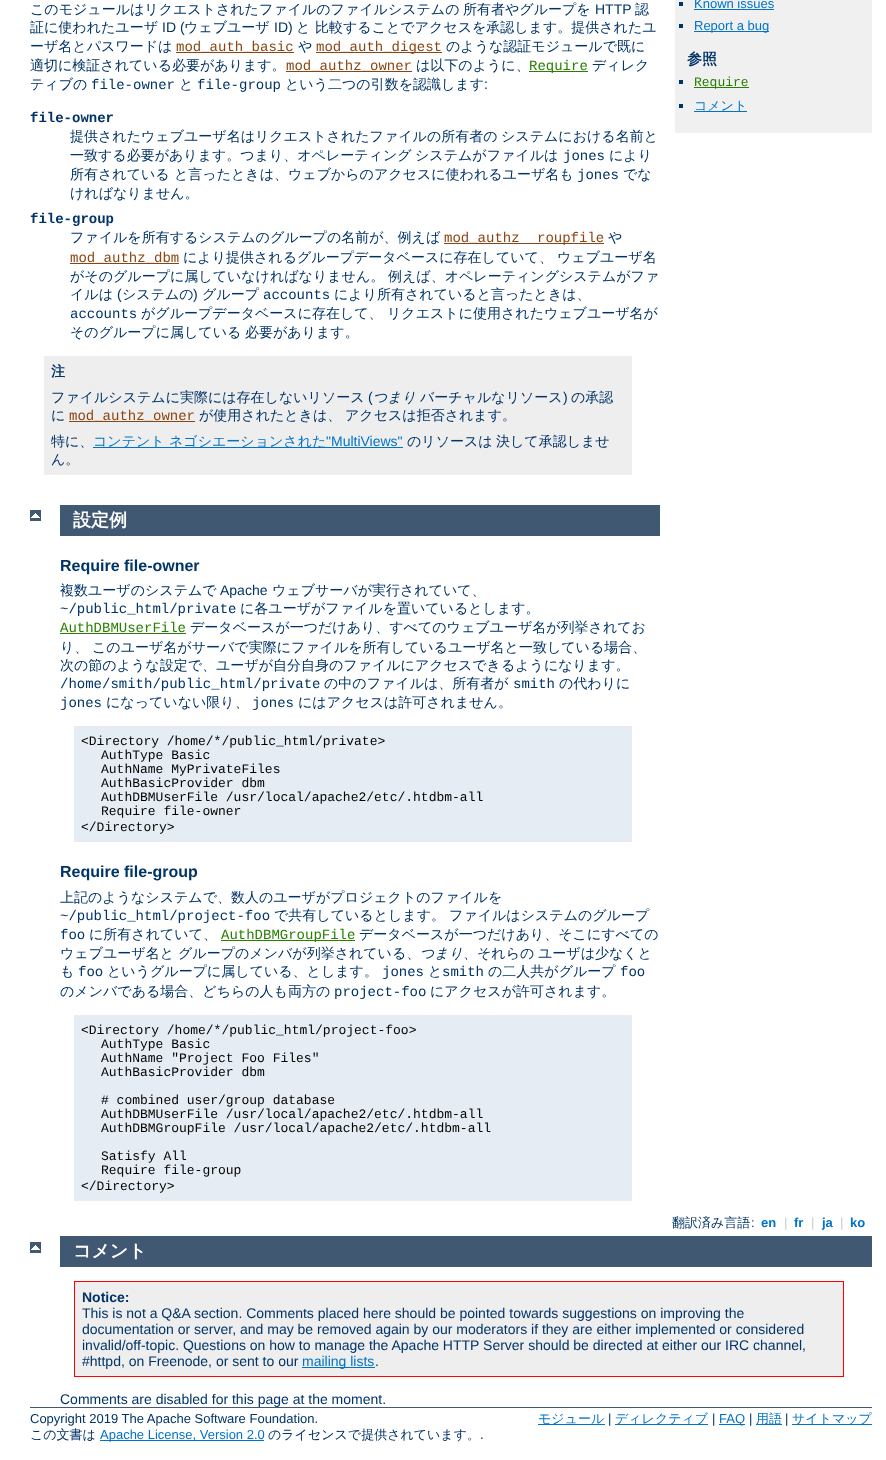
<svg xmlns="http://www.w3.org/2000/svg" width="886" height="1460">
<rect width="100%" height="100%" fill="#fff"/>
<text x="30" y="14" style="font-family:WenQuanYi Zen Hei;font-size:14px;font-weight:500;fill:#036">このモジュールはリクエストされたファイルのファイルシステムの</text>
<text x="463" y="14" style="font-family:WenQuanYi Zen Hei;font-size:14px;font-weight:500;fill:#036">所有者やグループを</text>
<text x="595" y="14" style="font-family:Liberation Sans;font-size:14px;fill:#036">HTTP</text>
<text x="635" y="14" style="font-family:WenQuanYi Zen Hei;font-size:14px;font-weight:500;fill:#036">認</text>
<text x="30" y="32" style="font-family:WenQuanYi Zen Hei;font-size:14px;font-weight:500;fill:#036">証に使われたユーザ</text>
<text x="162" y="32" style="font-family:Liberation Sans;font-size:14px;fill:#036">ID (</text>
<text x="184" y="32" style="font-family:WenQuanYi Zen Hei;font-size:14px;font-weight:500;fill:#036">ウェブユーザ</text>
<text x="274" y="32" style="font-family:Liberation Sans;font-size:14px;fill:#036">ID)</text>
<text x="296" y="32" style="font-family:WenQuanYi Zen Hei;font-size:14px;font-weight:500;fill:#036">と</text>
<text x="315" y="32" style="font-family:WenQuanYi Zen Hei;font-size:14px;font-weight:500;fill:#036">比較することでアクセスを承認します。提供されたユ</text>
<text x="30" y="51" style="font-family:WenQuanYi Zen Hei;font-size:14px;font-weight:500;fill:#036">ーザ名とパスワードは</text>
<rect x="176" y="52" width="118" height="1" fill="#8b4513"/>
<text x="176" y="51" style="font-family:Liberation Mono;font-size:14px;fill:#8b4513">mod_auth_basic</text>
<text x="298" y="51" style="font-family:WenQuanYi Zen Hei;font-size:14px;font-weight:500;fill:#036">や</text>
<rect x="316" y="52" width="126" height="1" fill="#8b4513"/>
<text x="316" y="51" style="font-family:Liberation Mono;font-size:14px;fill:#8b4513">mod_auth_digest</text>
<text x="446" y="51" style="font-family:WenQuanYi Zen Hei;font-size:14px;font-weight:500;fill:#036">のような認証モジュールで既に</text>
<text x="30" y="70" style="font-family:WenQuanYi Zen Hei;font-size:14px;font-weight:500;fill:#036">適切に検証されている必要があります。</text>
<rect x="286" y="71" width="126" height="1" fill="#8b4513"/>
<text x="286" y="70" style="font-family:Liberation Mono;font-size:14px;fill:#8b4513">mod_authz_owner</text>
<text x="416" y="70" style="font-family:WenQuanYi Zen Hei;font-size:14px;font-weight:500;fill:#036">は以下のように、</text>
<rect x="529" y="71" width="59" height="1" fill="#287f00"/>
<text x="529" y="70" style="font-family:Liberation Mono;font-size:14px;fill:#287f00">Require</text>
<text x="592" y="70" style="font-family:WenQuanYi Zen Hei;font-size:14px;font-weight:500;fill:#036">ディレク</text>
<text x="30" y="89" style="font-family:WenQuanYi Zen Hei;font-size:14px;font-weight:500;fill:#036">ティブの</text>
<text x="91" y="89" style="font-family:Liberation Mono;font-size:14px;fill:#036">file-owner</text>
<text x="179" y="89" style="font-family:WenQuanYi Zen Hei;font-size:14px;font-weight:500;fill:#036">と</text>
<text x="197" y="89" style="font-family:Liberation Mono;font-size:14px;fill:#036">file-group</text>
<text x="285" y="89" style="font-family:WenQuanYi Zen Hei;font-size:14px;font-weight:500;fill:#036">という二つの引数を認識します</text>
<text x="484" y="89" style="font-family:Liberation Sans;font-size:14px;fill:#036">:</text>
<text x="30" y="122" style="font-family:Liberation Mono;font-size:14px;font-weight:bold;fill:#036">file-owner</text>
<text x="70" y="141" style="font-family:WenQuanYi Zen Hei;font-size:14px;font-weight:500;fill:#036">提供されたウェブユーザ名はリクエストされたファイルの所有者の</text>
<text x="501" y="141" style="font-family:WenQuanYi Zen Hei;font-size:14px;font-weight:500;fill:#036">システムにおける名前と</text>
<text x="70" y="160" style="font-family:WenQuanYi Zen Hei;font-size:14px;font-weight:500;fill:#036">一致する必要があります。つまり、オペレーティング</text>
<text x="415" y="160" style="font-family:WenQuanYi Zen Hei;font-size:14px;font-weight:500;fill:#036">システムがファイルは</text>
<text x="563" y="160" style="font-family:Liberation Mono;font-size:14px;fill:#036">jones</text>
<text x="609" y="160" style="font-family:WenQuanYi Zen Hei;font-size:14px;font-weight:500;fill:#036">により</text>
<text x="70" y="179" style="font-family:WenQuanYi Zen Hei;font-size:14px;font-weight:500;fill:#036">所有されている</text>
<text x="174" y="179" style="font-family:WenQuanYi Zen Hei;font-size:14px;font-weight:500;fill:#036">と言ったときは、ウェブからのアクセスに使われるユーザ名も</text>
<text x="577" y="179" style="font-family:Liberation Mono;font-size:14px;fill:#036">jones</text>
<text x="623" y="179" style="font-family:WenQuanYi Zen Hei;font-size:14px;font-weight:500;fill:#036">でな</text>
<text x="70" y="198" style="font-family:WenQuanYi Zen Hei;font-size:14px;font-weight:500;fill:#036">ければなりません。</text>
<text x="30" y="223" style="font-family:Liberation Mono;font-size:14px;font-weight:bold;fill:#036">file-group</text>
<text x="70" y="242" style="font-family:WenQuanYi Zen Hei;font-size:14px;font-weight:500;fill:#036">ファイルを所有するシステムのグループの名前が、例えば</text>
<rect x="444" y="243" width="160" height="1" fill="#8b4513"/>
<text x="444" y="242" style="font-family:Liberation Mono;font-size:14px;fill:#8b4513">mod_authz</text>
<text x="537" y="242" style="font-family:Liberation Mono;font-size:14px;fill:#8b4513">roupfile</text>
<text x="608" y="242" style="font-family:WenQuanYi Zen Hei;font-size:14px;font-weight:500;fill:#036">や</text>
<rect x="70" y="263" width="109" height="1" fill="#8b4513"/>
<text x="70" y="262" style="font-family:Liberation Mono;font-size:14px;fill:#8b4513">mod_authz_dbm</text>
<text x="183" y="262" style="font-family:WenQuanYi Zen Hei;font-size:14px;font-weight:500;fill:#036">により提供されるグループデータベースに存在していて、</text>
<text x="557" y="262" style="font-family:WenQuanYi Zen Hei;font-size:14px;font-weight:500;fill:#036">ウェブユーザ名</text>
<text x="70" y="281" style="font-family:WenQuanYi Zen Hei;font-size:14px;font-weight:500;fill:#036">がそのグループに属していなければなりません。</text>
<text x="388" y="281" style="font-family:WenQuanYi Zen Hei;font-size:14px;font-weight:500;fill:#036">例えば、オペレーティングシステムがファ</text>
<text x="70" y="299" style="font-family:WenQuanYi Zen Hei;font-size:14px;font-weight:500;fill:#036">イルは</text>
<text x="117" y="299" style="font-family:Liberation Sans;font-size:14px;fill:#036">(</text>
<text x="122" y="299" style="font-family:WenQuanYi Zen Hei;font-size:14px;font-weight:500;fill:#036">システムの</text>
<text x="193" y="299" style="font-family:Liberation Sans;font-size:14px;fill:#036">)</text>
<text x="202" y="299" style="font-family:WenQuanYi Zen Hei;font-size:14px;font-weight:500;fill:#036">グループ</text>
<text x="263" y="299" style="font-family:Liberation Mono;font-size:14px;fill:#036">accounts</text>
<text x="334" y="299" style="font-family:WenQuanYi Zen Hei;font-size:14px;font-weight:500;fill:#036">により所有されていると言ったときは、</text>
<text x="70" y="318" style="font-family:Liberation Mono;font-size:14px;fill:#036">accounts</text>
<text x="141" y="318" style="font-family:WenQuanYi Zen Hei;font-size:14px;font-weight:500;fill:#036">がグループデータベースに存在して、</text>
<text x="387" y="318" style="font-family:WenQuanYi Zen Hei;font-size:14px;font-weight:500;fill:#036">リクエストに使用されたウェブユーザ名が</text>
<text x="70" y="337" style="font-family:WenQuanYi Zen Hei;font-size:14px;font-weight:500;fill:#036">そのグループに属している</text>
<text x="245" y="337" style="font-family:WenQuanYi Zen Hei;font-size:14px;font-weight:500;fill:#036">必要があります。</text>
<rect x="44" y="356" width="588" height="119" fill="#eee"/>
<text x="51" y="376" style="font-family:WenQuanYi Zen Hei;font-size:14px;font-weight:bold;fill:#036">注</text>
<text x="51" y="402" style="font-family:WenQuanYi Zen Hei;font-size:14px;font-weight:500;fill:#036">ファイルシステムに実際には存在しないリソース</text>
<text x="368" y="402" style="font-family:Liberation Sans;font-size:14px;fill:#036">(</text>
<text x="373" y="402" style="font-family:WenQuanYi Zen Hei;font-size:14px;font-weight:500;font-style:italic;fill:#036">つまり</text>
<text x="420" y="402" style="font-family:WenQuanYi Zen Hei;font-size:14px;font-weight:500;fill:#036">バーチャルなリソース</text>
<text x="563" y="402" style="font-family:Liberation Sans;font-size:14px;fill:#036">)</text>
<text x="571" y="402" style="font-family:WenQuanYi Zen Hei;font-size:14px;font-weight:500;fill:#036">の承認</text>
<text x="51" y="420" style="font-family:WenQuanYi Zen Hei;font-size:14px;font-weight:500;fill:#036">に</text>
<rect x="69" y="421" width="126" height="1" fill="#8b4513"/>
<text x="69" y="420" style="font-family:Liberation Mono;font-size:14px;fill:#8b4513">mod_authz_owner</text>
<text x="199" y="420" style="font-family:WenQuanYi Zen Hei;font-size:14px;font-weight:500;fill:#036">が使用されたときは、</text>
<text x="345" y="420" style="font-family:WenQuanYi Zen Hei;font-size:14px;font-weight:500;fill:#036">アクセスは拒否されます。</text>
<text x="51" y="446" style="font-family:WenQuanYi Zen Hei;font-size:14px;font-weight:500;fill:#036">特に、</text>
<rect x="93" y="447" width="310" height="1" fill="#0073c7"/>
<text x="93" y="446" style="font-family:WenQuanYi Zen Hei;font-size:14px;font-weight:500;fill:#0073c7">コンテント</text>
<text x="169" y="446" style="font-family:WenQuanYi Zen Hei;font-size:14px;font-weight:500;fill:#0073c7">ネゴシエーションされた</text>
<text x="326" y="446" style="font-family:Liberation Sans;font-size:14px;fill:#0073c7">"MultiViews"</text>
<text x="407" y="446" style="font-family:WenQuanYi Zen Hei;font-size:14px;font-weight:500;fill:#036">のリソースは</text>
<text x="496" y="446" style="font-family:WenQuanYi Zen Hei;font-size:14px;font-weight:500;fill:#036">決して承認しませ</text>
<text x="51" y="464" style="font-family:WenQuanYi Zen Hei;font-size:14px;font-weight:500;fill:#036">ん。</text>
<rect x="675" width="197" height="133" fill="#f0f0f0"/>
<rect x="679" y="2" width="4" height="4" fill="#036"/>
<text x="694" y="8" style="font-family:Liberation Sans;font-size:13px;fill:#0073c7">Known issues</text>
<rect x="694" y="9" width="80" height="1" fill="#0073c7"/>
<rect x="679" y="24" width="4" height="4" fill="#036"/>
<rect x="694" y="31" width="75" height="1" fill="#0073c7"/>
<text x="694" y="30" style="font-family:Liberation Sans;font-size:13px;fill:#0073c7">Report a bug</text>
<text x="687" y="64" style="font-family:WenQuanYi Zen Hei;font-size:15px;font-weight:bold;fill:#036">参照</text>
<rect x="679" y="80" width="4" height="4" fill="#036"/>
<rect x="694" y="87" width="55" height="1" fill="#287f00"/>
<text x="694" y="86" style="font-family:Liberation Mono;font-size:13px;fill:#287f00">Require</text>
<rect x="679" y="104" width="4" height="4" fill="#036"/>
<rect x="694" y="111" width="53" height="1" fill="#0073c7"/>
<text x="694" y="110" style="font-family:WenQuanYi Zen Hei;font-size:13px;font-weight:500;fill:#0073c7">コメント</text>
<image x="30" y="510" width="11" height="11" href="media/1.png"/>
<rect x="60" y="505" width="600" height="31" fill="#405871"/>
<text x="73" y="526" style="font-family:WenQuanYi Zen Hei;font-size:18px;font-weight:bold;fill:#fff">設定例</text>
<text x="60" y="571" style="font-family:Liberation Sans;font-size:16px;font-weight:bold;fill:#036">Require file-owner</text>
<text x="60" y="595" style="font-family:WenQuanYi Zen Hei;font-size:14px;font-weight:500;fill:#036">複数ユーザのシステムで</text>
<text x="220" y="595" style="font-family:Liberation Sans;font-size:14px;fill:#036">Apache</text>
<text x="272" y="595" style="font-family:WenQuanYi Zen Hei;font-size:14px;font-weight:500;fill:#036">ウェブサーバが実行されていて、</text>
<text x="60" y="613" style="font-family:Liberation Mono;font-size:14px;fill:#036">~/public_html/private</text>
<text x="240" y="613" style="font-family:WenQuanYi Zen Hei;font-size:14px;font-weight:500;fill:#036">に各ユーザがファイルを置いているとします。</text>
<text x="60" y="632" style="font-family:Liberation Mono;font-size:14px;fill:#287f00">AuthDBMUserFile</text>
<rect x="60" y="633" width="126" height="1" fill="#287f00"/>
<text x="190" y="632" style="font-family:WenQuanYi Zen Hei;font-size:14px;font-weight:500;fill:#036">データベースが一つだけあり、すべてのウェブユーザ名が列挙されてお</text>
<text x="60" y="652" style="font-family:WenQuanYi Zen Hei;font-size:14px;font-weight:500;fill:#036">り、</text>
<text x="92" y="652" style="font-family:WenQuanYi Zen Hei;font-size:14px;font-weight:500;fill:#036">このユーザ名がサーバで実際にファイルを所有しているユーザ名と一致している場合、</text>
<text x="60" y="670" style="font-family:WenQuanYi Zen Hei;font-size:14px;font-weight:500;fill:#036">次の節のような設定で、ユーザが自分自身のファイルにアクセスできるようになります。</text>
<text x="60" y="688" style="font-family:Liberation Mono;font-size:14px;fill:#036">/home/smith/public_html/private</text>
<text x="324" y="688" style="font-family:WenQuanYi Zen Hei;font-size:14px;font-weight:500;fill:#036">の中のファイルは、所有者が</text>
<text x="513" y="688" style="font-family:Liberation Mono;font-size:14px;fill:#036">smith</text>
<text x="559" y="688" style="font-family:WenQuanYi Zen Hei;font-size:14px;font-weight:500;fill:#036">の代わりに</text>
<text x="60" y="707" style="font-family:Liberation Mono;font-size:14px;fill:#036">jones</text>
<text x="106" y="707" style="font-family:WenQuanYi Zen Hei;font-size:14px;font-weight:500;fill:#036">になっていない限り、</text>
<text x="252" y="707" style="font-family:Liberation Mono;font-size:14px;fill:#036">jones</text>
<text x="298" y="707" style="font-family:WenQuanYi Zen Hei;font-size:14px;font-weight:500;fill:#036">にはアクセスは許可されません。</text>
<rect x="74" y="726" width="558" height="116" fill="#e5ecf3"/>
<text x="81" y="745" style="font-family:Liberation Mono;font-size:13px;fill:#000">&lt;Directory /home/*/public_html/private&gt;</text>
<text x="101" y="759" style="font-family:Liberation Mono;font-size:13px;fill:#000">AuthType Basic</text>
<text x="101" y="773" style="font-family:Liberation Mono;font-size:13px;fill:#000">AuthName MyPrivateFiles</text>
<text x="101" y="787" style="font-family:Liberation Mono;font-size:13px;fill:#000">AuthBasicProvider dbm</text>
<text x="101" y="801" style="font-family:Liberation Mono;font-size:13px;fill:#000">AuthDBMUserFile /usr/local/apache2/etc/.htdbm-all</text>
<text x="101" y="815" style="font-family:Liberation Mono;font-size:13px;fill:#000">Require file-owner</text>
<text x="81" y="831" style="font-family:Liberation Mono;font-size:13px;fill:#000">&lt;/Directory&gt;</text>
<text x="60" y="877" style="font-family:Liberation Sans;font-size:16px;font-weight:bold;fill:#036">Require file-group</text>
<text x="60" y="902" style="font-family:WenQuanYi Zen Hei;font-size:14px;font-weight:500;fill:#036">上記のようなシステムで、数人のユーザがプロジェクトのファイルを</text>
<text x="60" y="920" style="font-family:Liberation Mono;font-size:14px;fill:#036">~/public_html/project-foo</text>
<text x="274" y="920" style="font-family:WenQuanYi Zen Hei;font-size:14px;font-weight:500;fill:#036">で共有しているとします。</text>
<text x="449" y="920" style="font-family:WenQuanYi Zen Hei;font-size:14px;font-weight:500;fill:#036">ファイルはシステムのグループ</text>
<text x="60" y="939" style="font-family:Liberation Mono;font-size:14px;fill:#036">foo</text>
<text x="89" y="939" style="font-family:WenQuanYi Zen Hei;font-size:14px;font-weight:500;fill:#036">に所有されていて、</text>
<rect x="221" y="940" width="134" height="1" fill="#287f00"/>
<text x="221" y="939" style="font-family:Liberation Mono;font-size:14px;fill:#287f00">AuthDBMGroupFile</text>
<text x="359" y="939" style="font-family:WenQuanYi Zen Hei;font-size:14px;font-weight:500;fill:#036">データベースが一つだけあり、そこにすべての</text>
<text x="60" y="958" style="font-family:WenQuanYi Zen Hei;font-size:14px;font-weight:500;fill:#036">ウェブユーザ名と</text>
<text x="178" y="958" style="font-family:WenQuanYi Zen Hei;font-size:14px;font-weight:500;fill:#036">グループのメンバが列挙されている、</text>
<text x="420" y="958" style="font-family:WenQuanYi Zen Hei;font-size:14px;font-weight:500;font-style:italic;fill:#036">つまり</text>
<text x="463" y="958" style="font-family:WenQuanYi Zen Hei;font-size:14px;font-weight:500;fill:#036">、それらの</text>
<text x="538" y="958" style="font-family:WenQuanYi Zen Hei;font-size:14px;font-weight:500;fill:#036">ユーザは少なくと</text>
<text x="60" y="976" style="font-family:WenQuanYi Zen Hei;font-size:14px;font-weight:500;fill:#036">も</text>
<text x="78" y="976" style="font-family:Liberation Mono;font-size:14px;fill:#036">foo</text>
<text x="107" y="976" style="font-family:WenQuanYi Zen Hei;font-size:14px;font-weight:500;fill:#036">というグループに属している、とします。</text>
<text x="382" y="976" style="font-family:Liberation Mono;font-size:14px;fill:#036">jones</text>
<text x="428" y="976" style="font-family:WenQuanYi Zen Hei;font-size:14px;font-weight:500;fill:#036">と</text>
<text x="442" y="976" style="font-family:Liberation Mono;font-size:14px;fill:#036">smith</text>
<text x="488" y="976" style="font-family:WenQuanYi Zen Hei;font-size:14px;font-weight:500;fill:#036">の二人共がグループ</text>
<text x="620" y="976" style="font-family:Liberation Mono;font-size:14px;fill:#036">foo</text>
<text x="60" y="996" style="font-family:WenQuanYi Zen Hei;font-size:14px;font-weight:500;fill:#036">のメンバである場合、どちらの人も両方の</text>
<text x="334" y="996" style="font-family:Liberation Mono;font-size:14px;fill:#036">project-foo</text>
<text x="430" y="996" style="font-family:WenQuanYi Zen Hei;font-size:14px;font-weight:500;fill:#036">にアクセスが許可されます。</text>
<rect x="74" y="1015" width="558" height="186" fill="#e5ecf3"/>
<text x="81" y="1034" style="font-family:Liberation Mono;font-size:13px;fill:#000">&lt;Directory /home/*/public_html/project-foo&gt;</text>
<text x="101" y="1048" style="font-family:Liberation Mono;font-size:13px;fill:#000">AuthType Basic</text>
<text x="101" y="1062" style="font-family:Liberation Mono;font-size:13px;fill:#000">AuthName "Project Foo Files"</text>
<text x="101" y="1076" style="font-family:Liberation Mono;font-size:13px;fill:#000">AuthBasicProvider dbm</text>
<text x="101" y="1104" style="font-family:Liberation Mono;font-size:13px;fill:#000"># combined user/group database</text>
<text x="101" y="1118" style="font-family:Liberation Mono;font-size:13px;fill:#000">AuthDBMUserFile /usr/local/apache2/etc/.htdbm-all</text>
<text x="101" y="1132" style="font-family:Liberation Mono;font-size:13px;fill:#000">AuthDBMGroupFile /usr/local/apache2/etc/.htdbm-all</text>
<text x="101" y="1160" style="font-family:Liberation Mono;font-size:13px;fill:#000">Satisfy All</text>
<text x="101" y="1174" style="font-family:Liberation Mono;font-size:13px;fill:#000">Require file-group</text>
<text x="81" y="1190" style="font-family:Liberation Mono;font-size:13px;fill:#000">&lt;/Directory&gt;</text>
<text x="672" y="1227" style="font-family:WenQuanYi Zen Hei;font-size:13px;font-weight:500;fill:#036">翻訳済み言語</text>
<text x="751" y="1227" style="font-family:Liberation Sans;font-size:13px;fill:#036">:</text>
<text x="761" y="1227" style="font-family:Liberation Sans;font-size:13px;font-weight:bold;fill:#0073c7">en</text>
<text x="784" y="1227" style="font-family:Liberation Sans;font-size:13px;fill:#ccc">|</text>
<text x="794" y="1227" style="font-family:Liberation Sans;font-size:13px;font-weight:bold;fill:#0073c7">fr</text>
<text x="811" y="1227" style="font-family:Liberation Sans;font-size:13px;fill:#ccc">|</text>
<text x="822" y="1227" style="font-family:Liberation Sans;font-size:13px;font-weight:bold;fill:#0073c7">ja</text>
<text x="840" y="1227" style="font-family:Liberation Sans;font-size:13px;fill:#ccc">|</text>
<text x="850" y="1227" style="font-family:Liberation Sans;font-size:13px;font-weight:bold;fill:#0073c7">ko</text>
<image x="30" y="1242" width="11" height="11" href="media/1.png"/>
<rect x="60" y="1236" width="812" height="31" fill="#405871"/>
<text x="73" y="1257" style="font-family:WenQuanYi Zen Hei;font-size:18px;font-weight:bold;fill:#fff">コメント</text>
<rect x="74.5" y="1281.5" width="769" height="95" fill="#eee" stroke="#f00"/>
<text x="82" y="1302" style="font-family:Liberation Sans;font-size:14px;font-weight:bold;fill:#036">Notice:</text>
<text x="82" y="1318" style="font-family:Liberation Sans;font-size:14px;fill:#036">This is not a Q&amp;A section. Comments placed here should be pointed towards suggestions on improving the</text>
<text x="82" y="1334" style="font-family:Liberation Sans;font-size:14px;fill:#036">documentation or server, and may be removed again by our moderators if they are either implemented or considered</text>
<text x="82" y="1350" style="font-family:Liberation Sans;font-size:14px;fill:#036">invalid/off-topic. Questions on how to manage the Apache HTTP Server should be directed at either our IRC channel,</text>
<text x="82" y="1366" style="font-family:Liberation Sans;font-size:14px;fill:#036">#httpd, on Freenode, or sent to our</text>
<rect x="302" y="1367" width="73" height="1" fill="#0073c7"/>
<text x="302" y="1366" style="font-family:Liberation Sans;font-size:14px;fill:#0073c7">mailing lists</text>
<text x="375" y="1366" style="font-family:Liberation Sans;font-size:14px;fill:#036">.</text>
<text x="60" y="1404" style="font-family:Liberation Sans;font-size:14px;fill:#036">Comments are disabled for this page at the moment.</text>
<rect x="30" y="1407" width="842" height="1" fill="#405871"/>
<text x="30" y="1423" style="font-family:Liberation Sans;font-size:13px;fill:#036">Copyright 2019 The Apache Software Foundation.</text>
<text x="30" y="1439" style="font-family:WenQuanYi Zen Hei;font-size:13px;font-weight:500;fill:#036">この文書は</text>
<rect x="100" y="1440" width="164" height="1" fill="#0073c7"/>
<text x="100" y="1439" style="font-family:Liberation Sans;font-size:13px;fill:#0073c7">Apache License, Version 2.0</text>
<text x="268" y="1439" style="font-family:WenQuanYi Zen Hei;font-size:13px;font-weight:500;fill:#036">のライセンスで提供されています。</text>
<text x="480" y="1439" style="font-family:Liberation Sans;font-size:13px;fill:#036">.</text>
<rect x="538" y="1424" width="67" height="1" fill="#0073c7"/>
<text x="538" y="1423" style="font-family:WenQuanYi Zen Hei;font-size:13px;font-weight:500;fill:#0073c7">モジュール</text>
<text x="608" y="1423" style="font-family:Liberation Sans;font-size:13px;fill:#036">|</text>
<rect x="615" y="1424" width="93" height="1" fill="#0073c7"/>
<text x="615" y="1423" style="font-family:WenQuanYi Zen Hei;font-size:13px;font-weight:500;fill:#0073c7">ディレクティブ</text>
<text x="712" y="1423" style="font-family:Liberation Sans;font-size:13px;fill:#036">|</text>
<rect x="719" y="1424" width="26" height="1" fill="#0073c7"/>
<text x="719" y="1423" style="font-family:Liberation Sans;font-size:13px;fill:#0073c7">FAQ</text>
<text x="749" y="1423" style="font-family:Liberation Sans;font-size:13px;fill:#036">|</text>
<rect x="756" y="1424" width="26" height="1" fill="#0073c7"/>
<text x="756" y="1423" style="font-family:WenQuanYi Zen Hei;font-size:13px;font-weight:500;fill:#0073c7">用語</text>
<text x="785" y="1423" style="font-family:Liberation Sans;font-size:13px;fill:#036">|</text>
<rect x="792" y="1424" width="80" height="1" fill="#0073c7"/>
<text x="792" y="1423" style="font-family:WenQuanYi Zen Hei;font-size:13px;font-weight:500;fill:#0073c7">サイトマップ</text>
</svg>
